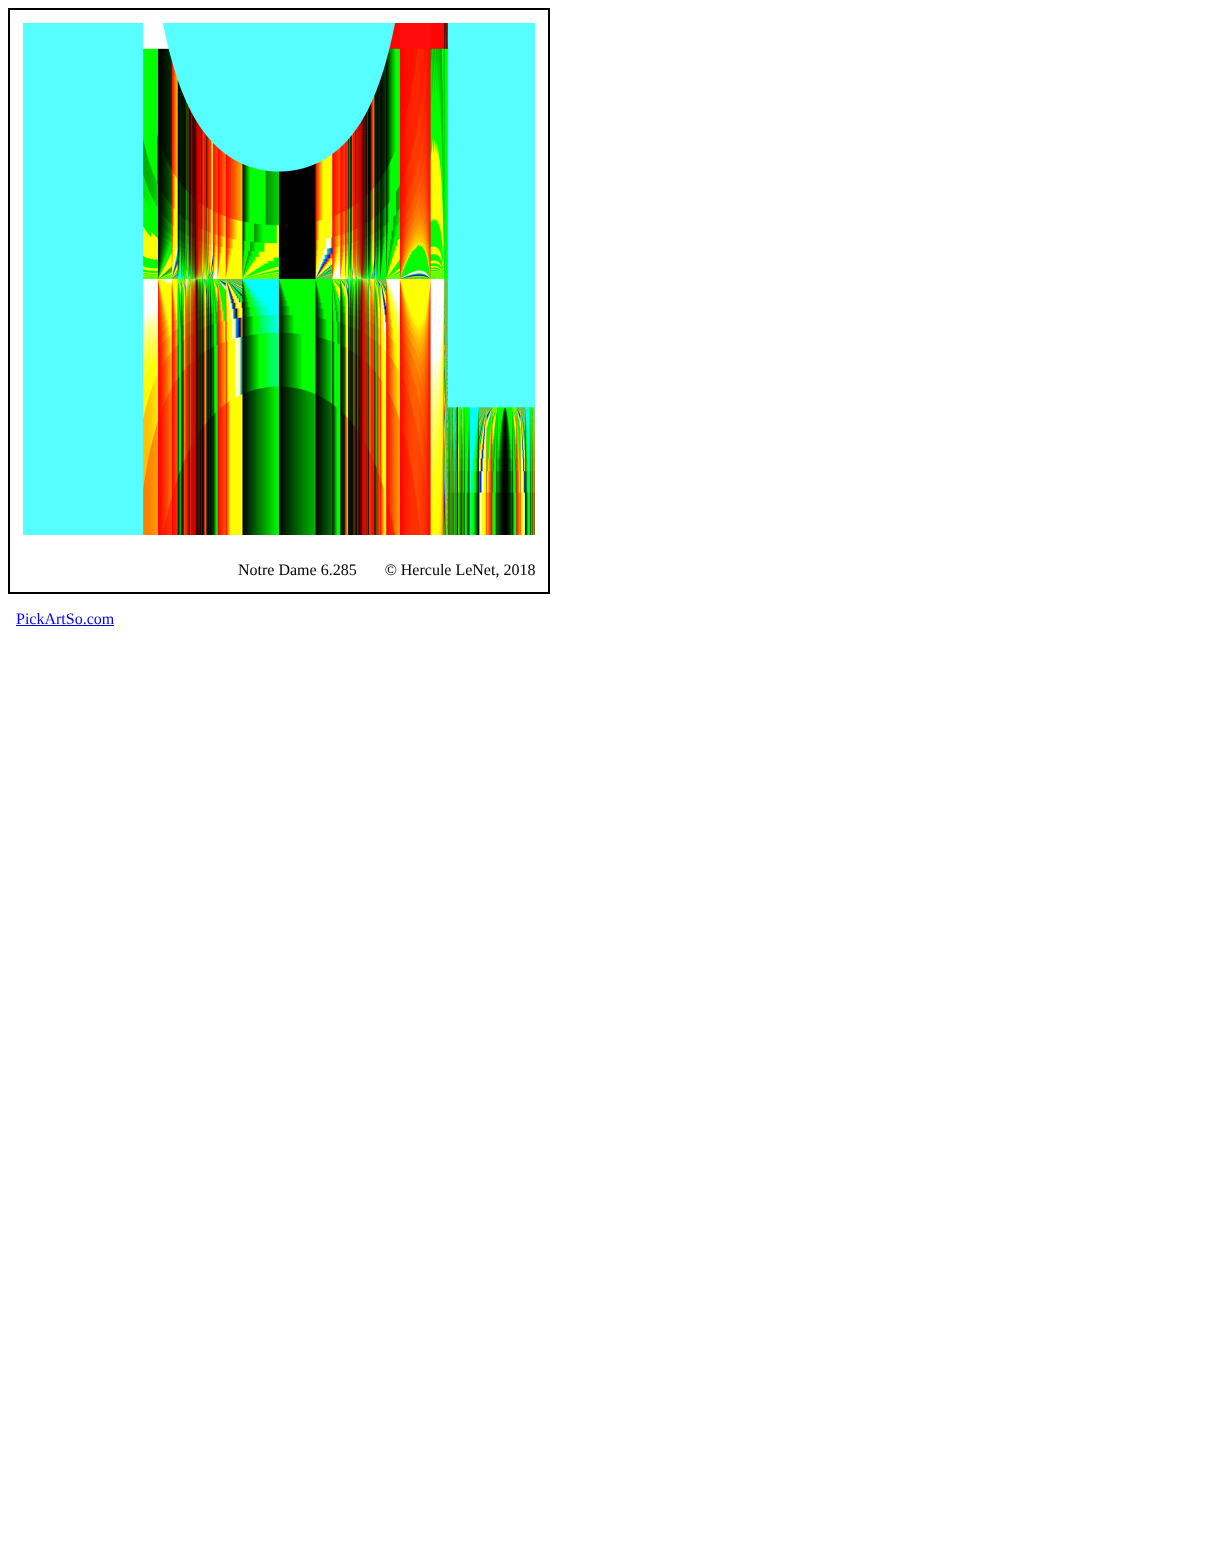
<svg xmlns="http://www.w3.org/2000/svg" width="1228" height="1555">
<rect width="100%" height="100%" fill="#fff"/>
<rect x="9" y="9" width="540" height="584" fill="none" stroke="#000" stroke-width="2"/>
<image x="23" y="23" width="512" height="512" href="media/1.png"/>
<text x="238" y="575" style="font-family:Liberation Serif;font-size:16px;fill:#000" xml:space="preserve">Notre Dame 6.285       © Hercule LeNet, 2018</text>
<text x="16" y="624" style="font-family:Liberation Serif;font-size:16px;fill:#00e">PickArtSo.com</text>
<rect x="16" y="625" width="98" height="1" fill="#00e"/>
</svg>
